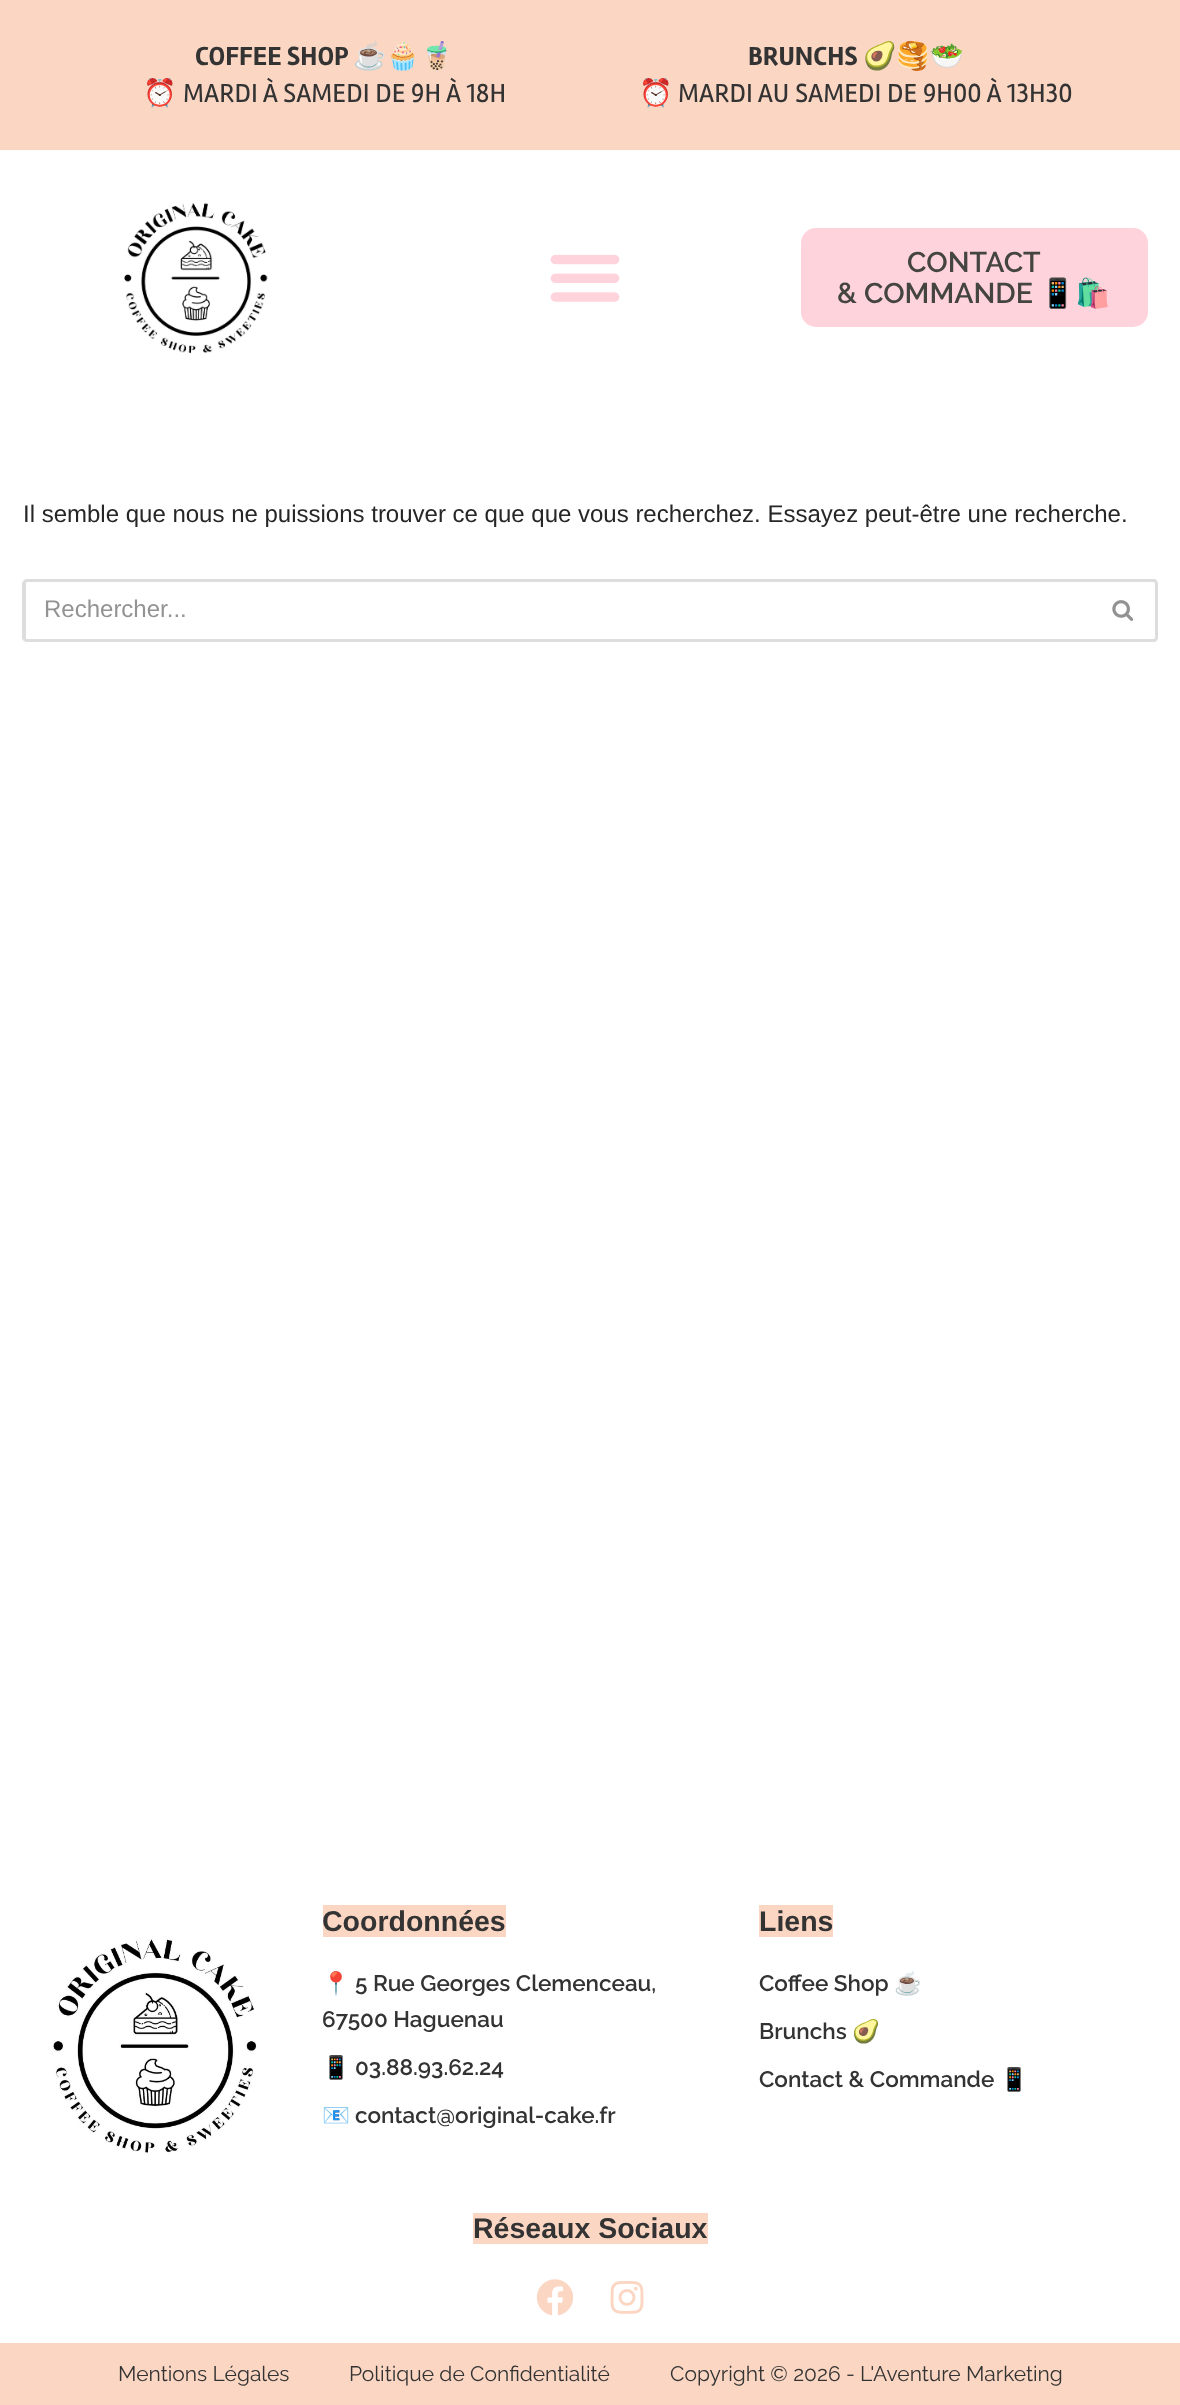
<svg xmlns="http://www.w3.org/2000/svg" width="1180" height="2405">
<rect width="100%" height="100%" fill="#fff"/>
<rect width="1180" height="150" fill="#fbd6c3"/>
<text x="195" y="65" style="font-family:Rambla;font-size:27px;font-weight:bold;fill:#333">COFFEE SHOP</text>
<text x="353" y="65" style="font-family:Noto Color Emoji;font-size:27px;font-weight:bold;fill:#333">☕️🧁🧋</text>
<text x="143" y="102" style="font-family:Noto Color Emoji;font-size:27px;fill:#333">⏰</text>
<text x="183" y="102" style="font-family:Rambla;font-size:27px;fill:#333">MARDI À SAMEDI DE 9H À 18H</text>
<text x="748" y="65" style="font-family:Rambla;font-size:27px;font-weight:bold;fill:#333">BRUNCHS</text>
<text x="863" y="65" style="font-family:Noto Color Emoji;font-size:27px;font-weight:bold;fill:#333">🥑🥞🥗</text>
<text x="639" y="102" style="font-family:Noto Color Emoji;font-size:27px;fill:#333">⏰</text>
<text x="678" y="102" style="font-family:Rambla;font-size:27px;fill:#333">MARDI AU SAMEDI DE 9H00 À 13H30</text>
<image x="124" y="203" width="144" height="151" href="media/1.png"/>
<image x="550" y="254" width="70" height="48" href="media/2.png"/>
<rect x="801" y="228" width="347" height="99" rx="15" fill="#fed3dc"/>
<text x="907" y="272" style="font-family:Raleway;font-size:28.5px;font-weight:600;fill:#444441">CONTACT</text>
<text x="837" y="303" style="font-family:Raleway;font-size:28.5px;font-weight:600;fill:#444441">&amp; COMMANDE</text>
<text x="1040" y="303" style="font-family:Noto Color Emoji;font-size:28.5px;font-weight:bold;fill:#444441">📱🛍️</text>
<text x="23" y="522" style="font-family:Liberation Sans;font-size:24px;fill:#272626">Il semble que nous ne puissions trouver ce que que vous recherchez. Essayez peut-être une recherche.</text>
<path d="M27 579h1063v63h-1063c-2 0-5-2-5-4v-54c0-3 3-5 5-5zm0 3h1063v57h-1063c-1 0-1-1-1-1v-54c0-1 0-2 1-2z" fill="#ddd" fill-rule="evenodd"/>
<text x="44" y="617" style="font-family:Liberation Sans;font-size:24px;fill:#939393">Rechercher...</text>
<path d="M1090 579h64c2 0 4 2 4 5v54c0 2-2 4-4 4h-64zm0 3h64c0 0 1 1 1 2v54c0 0-1 1-1 1h-64z" fill="#ddd" fill-rule="evenodd"/>
<image x="1112" y="600" width="22" height="21" href="media/3.png"/>
<image x="52" y="1939" width="206" height="215" href="media/4.png"/>
<rect x="323" y="1905" width="183" height="32" fill="#fbd6c3"/>
<text x="322" y="1931" style="font-family:Liberation Sans;font-size:28.5px;font-weight:bold;fill:#333">Coordonnées</text>
<text x="322" y="1991" style="font-family:Noto Color Emoji;font-size:22.5px;font-weight:bold;fill:#333">📍</text>
<text x="355" y="1991" style="font-family:'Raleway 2';font-size:22.5px;font-weight:600;fill:#333">5 Rue Georges Clemenceau,</text>
<text x="322" y="2027" style="font-family:'Raleway 2';font-size:22.5px;font-weight:600;fill:#333">67500 Haguenau</text>
<text x="322" y="2075" style="font-family:Noto Color Emoji;font-size:22.5px;font-weight:bold;fill:#333">📱</text>
<text x="355" y="2075" style="font-family:'Raleway 2';font-size:22.5px;font-weight:600;fill:#333">03.88.93.62.24</text>
<text x="322" y="2123" style="font-family:Noto Color Emoji;font-size:22.5px;font-weight:bold;fill:#333">📧</text>
<text x="355" y="2123" style="font-family:'Raleway 2';font-size:22.5px;font-weight:600;fill:#333">contact@original-cake.fr</text>
<rect x="759" y="1905" width="74" height="32" fill="#fbd6c3"/>
<text x="759" y="1931" style="font-family:Liberation Sans;font-size:28.5px;font-weight:bold;fill:#333">Liens</text>
<text x="759" y="1991" style="font-family:'Raleway 2';font-size:22.5px;font-weight:600;fill:#333">Coffee Shop</text>
<text x="894" y="1991" style="font-family:Noto Color Emoji;font-size:22.5px;font-weight:bold;fill:#333">☕️</text>
<text x="759" y="2039" style="font-family:'Raleway 2';font-size:22.5px;font-weight:600;fill:#333">Brunchs</text>
<text x="852" y="2039" style="font-family:Noto Color Emoji;font-size:22.5px;font-weight:bold;fill:#333">🥑</text>
<text x="759" y="2087" style="font-family:'Raleway 2';font-size:22.5px;font-weight:600;fill:#333">Contact &amp; Commande</text>
<text x="1000" y="2087" style="font-family:Noto Color Emoji;font-size:22.5px;font-weight:bold;fill:#333">📱</text>
<rect x="473" y="2213" width="235" height="31" fill="#fbd6c3"/>
<text x="473" y="2238" style="font-family:Liberation Sans;font-size:28.5px;font-weight:bold;fill:#333">Réseaux Sociaux</text>
<image x="536" y="2279" width="38" height="37" href="media/5.png"/>
<image x="610" y="2281" width="34" height="33" href="media/6.png"/>
<rect y="2343" width="1180" height="62" fill="#fbd6c3"/>
<text x="118" y="2381" style="font-family:Raleway;font-size:21px;fill:#333">Mentions Légales</text>
<text x="349" y="2381" style="font-family:Raleway;font-size:21px;fill:#333">Politique de Confidentialité</text>
<text x="670" y="2381" style="font-family:Raleway;font-size:21px;fill:#333">Copyright © 2026 - L'Aventure Marketing</text>
</svg>
